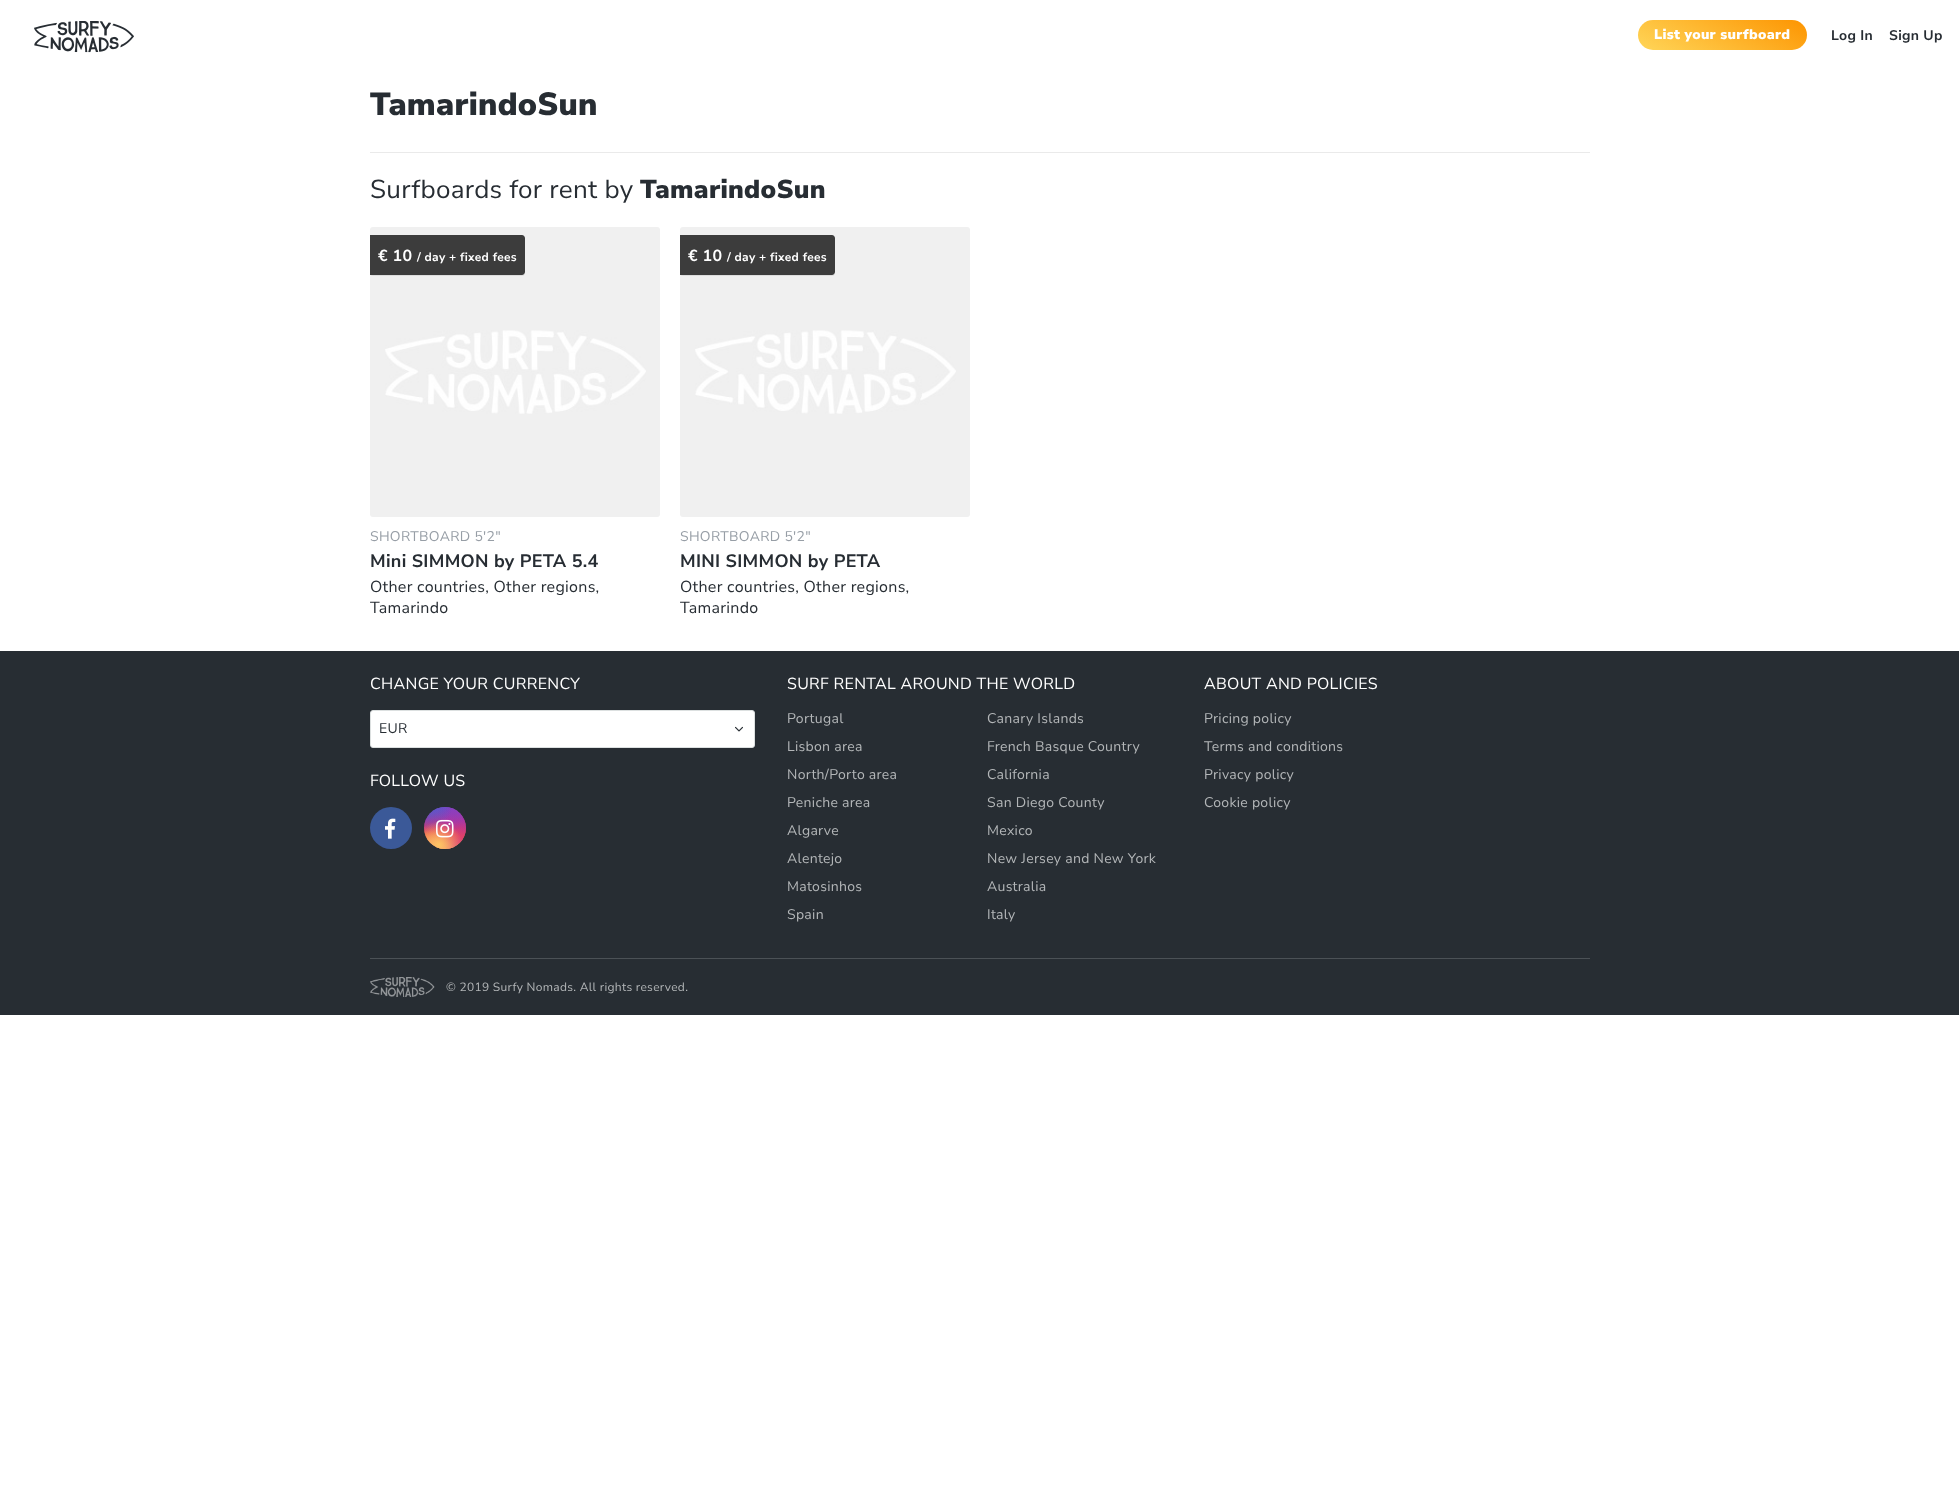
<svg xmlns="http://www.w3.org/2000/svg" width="1959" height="1492">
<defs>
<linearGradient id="g1" gradientUnits="userSpaceOnUse" x1="1698" y1="82" x2="1747" y2="-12"><stop offset="0" stop-color="#ffd659"/><stop offset="1" stop-color="#fd9400"/></linearGradient>
<clipPath id="clip1"><path d="M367 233h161v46h-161zm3 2h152c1.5 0 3 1.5 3 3v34c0 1.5-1.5 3-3 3h-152z" clip-rule="evenodd"/></clipPath>
<clipPath id="clip2"><path d="M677 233h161v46h-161zm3 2h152c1.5 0 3 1.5 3 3v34c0 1.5-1.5 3-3 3h-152z" clip-rule="evenodd"/></clipPath>
<linearGradient id="g2" gradientUnits="userSpaceOnUse" x1="445" y1="807" x2="445" y2="849"><stop offset="0" stop-color="#6559ca"/><stop offset="0.3" stop-color="#bc318f"/><stop offset="0.5" stop-color="#e33f5f"/><stop offset="0.7" stop-color="#f77638"/><stop offset="1" stop-color="#fec66d"/></linearGradient>
<radialGradient id="g3" gradientUnits="userSpaceOnUse" cx="466" cy="849" r="59"><stop offset="0" stop-color="#d9317a"/><stop offset="1" stop-color="#d9317a" stop-opacity="0"/></radialGradient>
<radialGradient id="g4" gradientUnits="userSpaceOnUse" cx="0" cy="0" r="1" gradientTransform="matrix(36 0 0 71 449 799)"><stop offset="0" stop-color="#893dc2"/><stop offset="0.5" stop-color="#893dc2" stop-opacity="0"/></radialGradient>
<radialGradient id="g5" gradientUnits="userSpaceOnUse" cx="466" cy="807" r="59"><stop offset="0" stop-color="#893dc2"/><stop offset="0.5" stop-color="#893dc2" stop-opacity="0"/></radialGradient>
<radialGradient id="g6" gradientUnits="userSpaceOnUse" cx="0" cy="0" r="1" gradientTransform="matrix(48 0 0 89 432 786)"><stop offset="0" stop-color="#5258cf"/><stop offset="0.5" stop-color="#5258cf" stop-opacity="0"/></radialGradient>
<radialGradient id="g7" gradientUnits="userSpaceOnUse" cx="0" cy="0" r="1" gradientTransform="matrix(59 0 0 74 424 797)"><stop offset="0" stop-color="#5258cf"/><stop offset="0.5" stop-color="#5258cf" stop-opacity="0"/></radialGradient>
<radialGradient id="g8" gradientUnits="userSpaceOnUse" cx="424" cy="866" r="72"><stop offset="0" stop-color="#fec564"/><stop offset="0.5" stop-color="#fec564" stop-opacity="0"/></radialGradient>
<radialGradient id="g9" gradientUnits="userSpaceOnUse" cx="439" cy="845" r="47"><stop offset="0" stop-color="#fec564"/><stop offset="0.5" stop-color="#fec564" stop-opacity="0"/></radialGradient>
</defs>
<rect width="100%" height="100%" fill="#fff"/>
<image x="34" y="21" width="100" height="32" href="media/1.png"/>
<rect x="1638" y="20" width="169" height="30" rx="15" fill="url(#g1)"/>
<text x="1654" y="39" style="font-family:Nunito Sans;font-size:14px;font-weight:900;letter-spacing:0.3px;fill:#fff">List your surfboard</text>
<text x="1831" y="40" style="font-family:Nunito Sans;font-size:14px;font-weight:bold;letter-spacing:0.3px;fill:#272d33">Log In</text>
<text x="1889" y="40" style="font-family:Nunito Sans;font-size:14px;font-weight:bold;letter-spacing:0.3px;fill:#272d33">Sign Up</text>
<rect x="370" y="152" width="1220" height="1" fill="#eaeaea"/>
<text x="370" y="115" style="font-family:Nunito Sans;font-size:32px;font-weight:900;letter-spacing:0.3px;fill:#272d33">TamarindoSun</text>
<text x="370" y="198" style="font-family:Nunito Sans;font-size:26px;letter-spacing:0.3px;fill:#272d33">Surfboards for rent by</text>
<text x="640" y="198" style="font-family:Nunito Sans;font-size:26px;font-weight:900;letter-spacing:0.3px;fill:#272d33">TamarindoSun</text>
<rect x="370" y="227" width="290" height="290" rx="3" fill="#f0f0f0"/>
<image x="385" y="330" width="261" height="84" href="media/2.png"/>
<g clip-path="url(#clip1)">
<rect x="370" y="236" width="155" height="40" rx="3" fill="#00000014" filter="blur(0.5px)"/>
</g>
<path d="M370 235h152c1.5 0 3 1.5 3 3v34c0 1.5-1.5 3-3 3h-152z" fill="#000000bf"/>
<text x="378" y="261" style="font-family:Nunito Sans;font-size:16px;font-weight:bold;letter-spacing:0.3px;fill:#fff">€ 10</text>
<text x="417" y="261" style="font-family:Nunito Sans;font-size:12px;font-weight:bold;letter-spacing:0.3px;fill:#fff">/ day + fixed fees</text>
<text x="370" y="541" style="font-family:Nunito Sans;font-size:14px;letter-spacing:0.3px;fill:#979ea6">SHORTBOARD 5'2"</text>
<text x="370" y="567" style="font-family:Nunito Sans;font-size:18px;font-weight:bold;letter-spacing:0.3px;fill:#272d33">Mini SIMMON by PETA 5.4</text>
<text x="370" y="592" style="font-family:Nunito Sans;font-size:16px;letter-spacing:0.3px;fill:#272d33">Other countries, Other regions,</text>
<text x="370" y="613" style="font-family:Nunito Sans;font-size:16px;letter-spacing:0.3px;fill:#272d33">Tamarindo</text>
<rect x="680" y="227" width="290" height="290" rx="3" fill="#f0f0f0"/>
<image x="695" y="330" width="261" height="84" href="media/2.png"/>
<g clip-path="url(#clip2)">
<rect x="680" y="236" width="155" height="40" rx="3" fill="#00000014" filter="blur(0.5px)"/>
</g>
<path d="M680 235h152c1.5 0 3 1.5 3 3v34c0 1.5-1.5 3-3 3h-152z" fill="#000000bf"/>
<text x="688" y="261" style="font-family:Nunito Sans;font-size:16px;font-weight:bold;letter-spacing:0.3px;fill:#fff">€ 10</text>
<text x="727" y="261" style="font-family:Nunito Sans;font-size:12px;font-weight:bold;letter-spacing:0.3px;fill:#fff">/ day + fixed fees</text>
<text x="680" y="541" style="font-family:Nunito Sans;font-size:14px;letter-spacing:0.3px;fill:#979ea6">SHORTBOARD 5'2"</text>
<text x="680" y="567" style="font-family:Nunito Sans;font-size:18px;font-weight:bold;letter-spacing:0.3px;fill:#272d33">MINI SIMMON by PETA</text>
<text x="680" y="592" style="font-family:Nunito Sans;font-size:16px;letter-spacing:0.3px;fill:#272d33">Other countries, Other regions,</text>
<text x="680" y="613" style="font-family:Nunito Sans;font-size:16px;letter-spacing:0.3px;fill:#272d33">Tamarindo</text>
<rect y="651" width="1959" height="364" fill="#272d33"/>
<text x="370" y="689" style="font-family:Nunito Sans;font-size:16px;letter-spacing:0.3px;fill:#fff">CHANGE YOUR CURRENCY</text>
<rect x="370.5" y="710.5" width="384" height="37" rx="2.5" fill="#fff" stroke="#dce0e0"/>
<text x="379" y="733" style="font-family:Nunito Sans;font-size:14px;letter-spacing:0.3px;fill:#272d33">EUR</text>
<image x="735" y="726" width="8" height="6" href="media/3.png"/>
<text x="370" y="786" style="font-family:Nunito Sans;font-size:16px;letter-spacing:0.3px;fill:#fff">FOLLOW US</text>
<circle cx="391" cy="828" r="21" fill="#3b5998"/>
<image x="385" y="818" width="11" height="21" href="media/4.png"/>
<circle cx="445" cy="828" r="21" fill="url(#g2)"/>
<circle cx="445" cy="828" r="21" fill="url(#g3)"/>
<circle cx="445" cy="828" r="21" fill="url(#g4)"/>
<circle cx="445" cy="828" r="21" fill="url(#g5)"/>
<circle cx="445" cy="828" r="21" fill="url(#g6)"/>
<circle cx="445" cy="828" r="21" fill="url(#g7)"/>
<circle cx="445" cy="828" r="21" fill="url(#g8)"/>
<circle cx="445" cy="828" r="21" fill="url(#g9)"/>
<image x="436" y="819" width="18" height="19" href="media/5.png"/>
<text x="787" y="689" style="font-family:Nunito Sans;font-size:16px;letter-spacing:0.3px;fill:#fff">SURF RENTAL AROUND THE WORLD</text>
<text x="787" y="723" style="font-family:Nunito Sans;font-size:14px;letter-spacing:0.3px;fill:#b3b6b8">Portugal</text>
<text x="987" y="723" style="font-family:Nunito Sans;font-size:14px;letter-spacing:0.3px;fill:#b3b6b8">Canary Islands</text>
<text x="787" y="751" style="font-family:Nunito Sans;font-size:14px;letter-spacing:0.3px;fill:#b3b6b8">Lisbon area</text>
<text x="987" y="751" style="font-family:Nunito Sans;font-size:14px;letter-spacing:0.3px;fill:#b3b6b8">French Basque Country</text>
<text x="787" y="779" style="font-family:Nunito Sans;font-size:14px;letter-spacing:0.3px;fill:#b3b6b8">North/Porto area</text>
<text x="987" y="779" style="font-family:Nunito Sans;font-size:14px;letter-spacing:0.3px;fill:#b3b6b8">California</text>
<text x="787" y="807" style="font-family:Nunito Sans;font-size:14px;letter-spacing:0.3px;fill:#b3b6b8">Peniche area</text>
<text x="987" y="807" style="font-family:Nunito Sans;font-size:14px;letter-spacing:0.3px;fill:#b3b6b8">San Diego County</text>
<text x="787" y="835" style="font-family:Nunito Sans;font-size:14px;letter-spacing:0.3px;fill:#b3b6b8">Algarve</text>
<text x="987" y="835" style="font-family:Nunito Sans;font-size:14px;letter-spacing:0.3px;fill:#b3b6b8">Mexico</text>
<text x="787" y="863" style="font-family:Nunito Sans;font-size:14px;letter-spacing:0.3px;fill:#b3b6b8">Alentejo</text>
<text x="987" y="863" style="font-family:Nunito Sans;font-size:14px;letter-spacing:0.3px;fill:#b3b6b8">New Jersey and New York</text>
<text x="787" y="891" style="font-family:Nunito Sans;font-size:14px;letter-spacing:0.3px;fill:#b3b6b8">Matosinhos</text>
<text x="987" y="891" style="font-family:Nunito Sans;font-size:14px;letter-spacing:0.3px;fill:#b3b6b8">Australia</text>
<text x="787" y="919" style="font-family:Nunito Sans;font-size:14px;letter-spacing:0.3px;fill:#b3b6b8">Spain</text>
<text x="987" y="919" style="font-family:Nunito Sans;font-size:14px;letter-spacing:0.3px;fill:#b3b6b8">Italy</text>
<text x="1204" y="689" style="font-family:Nunito Sans;font-size:16px;letter-spacing:0.3px;fill:#fff">ABOUT AND POLICIES</text>
<text x="1204" y="723" style="font-family:Nunito Sans;font-size:14px;letter-spacing:0.3px;fill:#b3b6b8">Pricing policy</text>
<text x="1204" y="751" style="font-family:Nunito Sans;font-size:14px;letter-spacing:0.3px;fill:#b3b6b8">Terms and conditions</text>
<text x="1204" y="779" style="font-family:Nunito Sans;font-size:14px;letter-spacing:0.3px;fill:#b3b6b8">Privacy policy</text>
<text x="1204" y="807" style="font-family:Nunito Sans;font-size:14px;letter-spacing:0.3px;fill:#b3b6b8">Cookie policy</text>
<rect x="370" y="958" width="1220" height="1" fill="#4b5156"/>
<image x="370" y="977" width="65" height="20" href="media/6.png"/>
<text x="446" y="991" style="font-family:Nunito Sans;font-size:12px;letter-spacing:0.3px;fill:#b3b6b8">© 2019 Surfy Nomads. All rights reserved.</text>
</svg>
